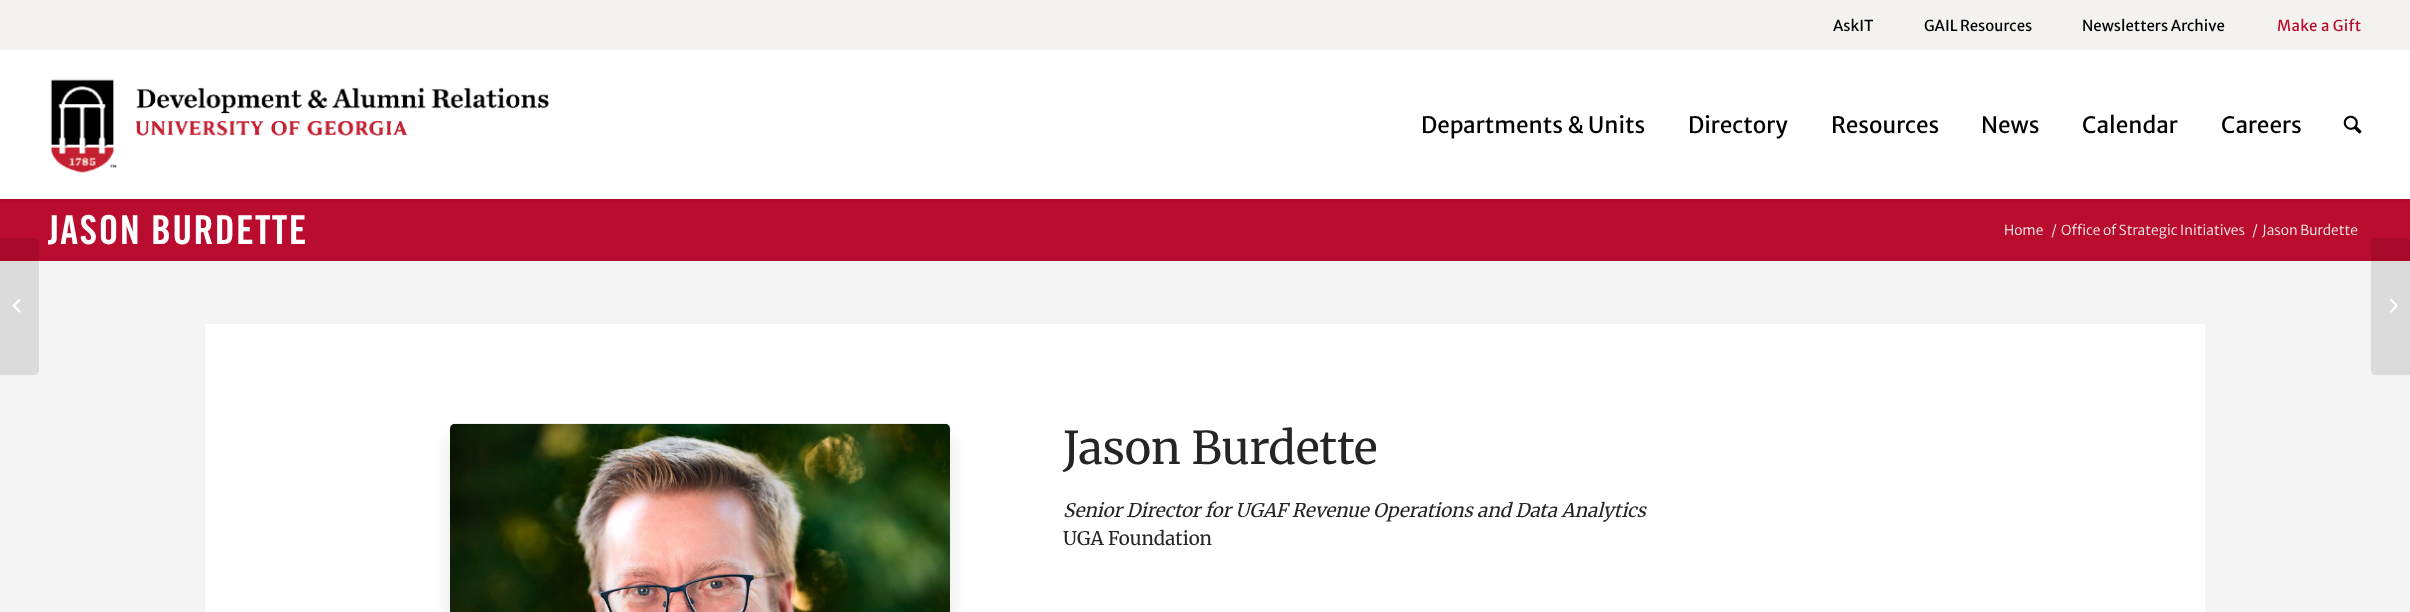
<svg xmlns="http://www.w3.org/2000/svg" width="2410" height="612">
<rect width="100%" height="100%" fill="#f4f4f4"/>
<rect y="199" width="2410" height="62" fill="#ba0c2f"/>
<rect x="-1" y="-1" width="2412" height="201" fill="#0000001a" filter="blur(1px)"/>
<rect width="2410" height="50" fill="#f3f2ee"/>
<text x="1833" y="31" style="font-family:Merriweather Sans;font-size:15px;fill:#000">AskIT</text>
<text x="1924" y="31" style="font-family:Merriweather Sans;font-size:15px;fill:#000">GAIL Resources</text>
<text x="2082" y="31" style="font-family:Merriweather Sans;font-size:15px;fill:#000">Newsletters Archive</text>
<text x="2277" y="31" style="font-family:Merriweather Sans;font-size:15px;letter-spacing:0.4px;fill:#ba0c2f">Make a Gift</text>
<rect y="50" width="2410" height="149" fill="#fff"/>
<image x="50" y="79" width="499" height="94" href="media/1.png"/>
<text x="1421" y="133" style="font-family:Merriweather Sans;font-size:22.5px;fill:#000">Departments &amp; Units</text>
<text x="1688" y="133" style="font-family:Merriweather Sans;font-size:22.5px;fill:#000">Directory</text>
<text x="1831" y="133" style="font-family:Merriweather Sans;font-size:22.5px;fill:#000">Resources</text>
<text x="1981" y="133" style="font-family:Merriweather Sans;font-size:22.5px;fill:#000">News</text>
<text x="2082" y="133" style="font-family:Merriweather Sans;font-size:22.5px;fill:#000">Calendar</text>
<text x="2221" y="133" style="font-family:Merriweather Sans;font-size:22.5px;fill:#000">Careers</text>
<image x="2343" y="115" width="19" height="19" href="media/2.png"/>
<path d="M0 238h34c3 0 5 2 5 5v127c0 3-2 5-5 5h-34z" fill="#0000001a"/>
<image x="12" y="298" width="9" height="15" href="media/3.png"/>
<text x="48" y="244" style="font-family:'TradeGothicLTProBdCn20';font-size:40px;letter-spacing:1.25px;fill:#fff">JASON BURDETTE</text>
<text x="2004" y="235" style="font-family:Merriweather Sans;font-size:13.75px;font-weight:300;fill:#f3f2ee">Home</text>
<text x="2051" y="235" style="font-family:Merriweather Sans;font-size:13.75px;font-weight:300;fill:#f3f2ee">/</text>
<text x="2061" y="235" style="font-family:Merriweather Sans;font-size:13.75px;font-weight:300;fill:#f3f2ee">Office of Strategic Initiatives</text>
<text x="2252" y="235" style="font-family:Merriweather Sans;font-size:13.75px;font-weight:300;fill:#f3f2ee">/</text>
<text x="2262" y="235" style="font-family:Merriweather Sans;font-size:13.75px;font-weight:300;fill:#f3f2ee">Jason Burdette</text>
<rect x="205" y="324" width="2000" height="288" fill="#fff"/>
<rect x="450" y="436" width="500" height="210" rx="5" fill="#0000001a" filter="blur(9.5px)"/>
<image x="450" y="423" width="500" height="189" href="media/4.png"/>
<text x="1063" y="464" style="font-family:Merriweather;font-size:45px;fill:#252525">Jason Burdette</text>
<text x="1063" y="517" style="font-family:Merriweather;font-size:18.75px;font-style:italic;fill:#252525">Senior Director for UGAF Revenue Operations and Data Analytics</text>
<text x="1063" y="545" style="font-family:Merriweather;font-size:18.75px;fill:#252525">UGA Foundation</text>
<path d="M2376 238h34v137h-34c-3 0-5-2-5-5v-127c0-3 2-5 5-5z" fill="#0000001a"/>
<image x="2390" y="299" width="8" height="14" href="media/5.png"/>
</svg>
